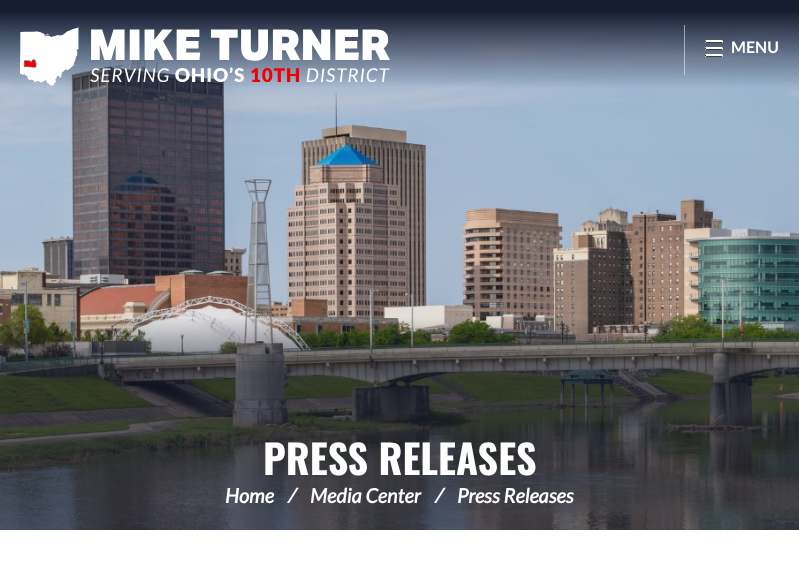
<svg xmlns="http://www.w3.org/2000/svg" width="799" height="572">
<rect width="100%" height="100%" fill="#fff"/>
<image x="0" y="0" width="799" height="530" href="media/2.png"/>
<image x="20" y="27" width="370" height="59" href="media/1.png"/>
<rect x="684" y="25" width="1" height="50" fill="#ffffff80"/>
<rect x="705" y="40" width="18" height="3" rx="1.5" fill="#fff"/>
<rect x="706" y="42" width="16" height="1" fill="#000000bf"/>
<rect x="705" y="41" width="1" height="1" fill="#3e3e3e"/>
<rect x="705" y="47" width="18" height="3" rx="1.5" fill="#fff"/>
<rect x="706" y="49" width="16" height="1" fill="#000000bf"/>
<rect x="705" y="48" width="1" height="1" fill="#3e3e3e"/>
<rect x="705" y="54" width="18" height="3" rx="1.5" fill="#fff"/>
<rect x="706" y="56" width="16" height="1" fill="#000000bf"/>
<rect x="705" y="55" width="1" height="1" fill="#3e3e3e"/>
<text x="731" y="53" style="font-family:Lato;font-size:16px;font-weight:bold;fill:#fff">MENU</text>
<text x="263" y="475" style="font-family:Oswald;font-size:40px;font-weight:bold;fill:#fff">PRESS RELEASES</text>
<text x="225" y="503" style="font-family:Lato;font-size:20px;font-weight:bold;font-style:italic;fill:#fff">Home</text>
<text x="291" y="503" style="font-family:Liberation Sans;font-size:22px;font-weight:bold;fill:#fff">∕</text>
<text x="310" y="503" style="font-family:Lato;font-size:20px;font-weight:bold;font-style:italic;fill:#fff">Media Center</text>
<text x="438" y="503" style="font-family:Liberation Sans;font-size:22px;font-weight:bold;fill:#fff">∕</text>
<text x="457" y="503" style="font-family:Lato;font-size:20px;font-weight:bold;font-style:italic;fill:#fff">Press Releases</text>
</svg>
